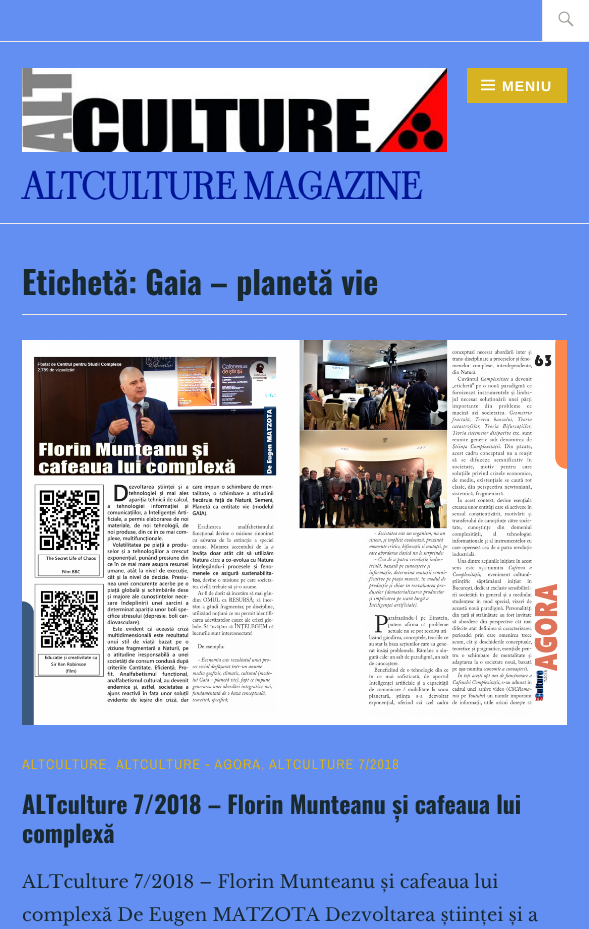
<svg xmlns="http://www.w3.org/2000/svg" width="589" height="929">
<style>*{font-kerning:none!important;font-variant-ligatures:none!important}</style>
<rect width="100%" height="100%" fill="#638ef2"/>
<rect y="223" width="589" height="1" fill="#eeece8"/>
<rect y="41" width="589" height="1" fill="#eeece8"/>
<rect x="543" width="46" height="41" fill="#fff"/>
<rect x="542" width="1" height="41" fill="#eeece8"/>
<image x="558" y="11" width="16" height="16" href="media/1.png"/>
<rect x="467" y="68" width="100" height="35" fill="#d7b221"/>
<image x="481" y="79" width="14" height="12" href="media/2.png"/>
<text x="502" y="91" style="font-family:Liberation Sans;font-size:14px;font-weight:bold;letter-spacing:1px;fill:#fff">MENIU</text>
<image x="22" y="68" width="425" height="84" href="media/3.png"/>
<text x="22" y="199" word-spacing="-1" style="font-family:Viaoda Libre;font-size:36px;font-weight:bold;fill:#001696">ALTCULTURE MAGAZINE</text>
<rect x="22" y="314" width="545" height="1" fill="#eeece8"/>
<text x="22" y="295" style="font-family:Oswald;font-size:32px;font-weight:bold;fill:#192930">Etichetă: Gaia – planetă vie</text>
<image x="22" y="340" width="545" height="385" href="media/4.png"/>
<text x="22" y="769" style="font-family:Archivo Narrow;font-size:14px;letter-spacing:1px;fill:#d7b221">ALTCULTURE</text>
<text x="108" y="769" style="font-family:Archivo Narrow;font-size:14px;letter-spacing:1px;fill:#a5a29d">,</text>
<text x="116" y="769" style="font-family:Archivo Narrow;font-size:14px;letter-spacing:1px;fill:#d7b221">ALTCULTURE - AGORA</text>
<text x="261" y="769" style="font-family:Archivo Narrow;font-size:14px;letter-spacing:1px;fill:#a5a29d">,</text>
<text x="269" y="769" style="font-family:Archivo Narrow;font-size:14px;letter-spacing:1px;fill:#d7b221">ALTCULTURE 7/2018</text>
<text x="22" y="814" style="font-family:Oswald;font-size:24px;font-weight:bold;fill:#192930">ALTculture 7/2018 – Florin Munteanu și cafeaua lui</text>
<text x="22" y="843" style="font-family:Oswald;font-size:24px;font-weight:bold;fill:#192930">complexă</text>
<text x="22" y="888" style="font-family:Libre Baskerville;font-size:18px;fill:#192930">ALTculture</text>
<text x="134" y="888" style="font-family:Libre Baskerville;font-size:18px;fill:#192930">7/2018 – Florin Munteanu și cafeaua lui</text>
<text x="22" y="921" style="font-family:Libre Baskerville;font-size:18px;fill:#192930">complexă De Eugen MATZOTA Dezvoltarea științei și a</text>
</svg>
